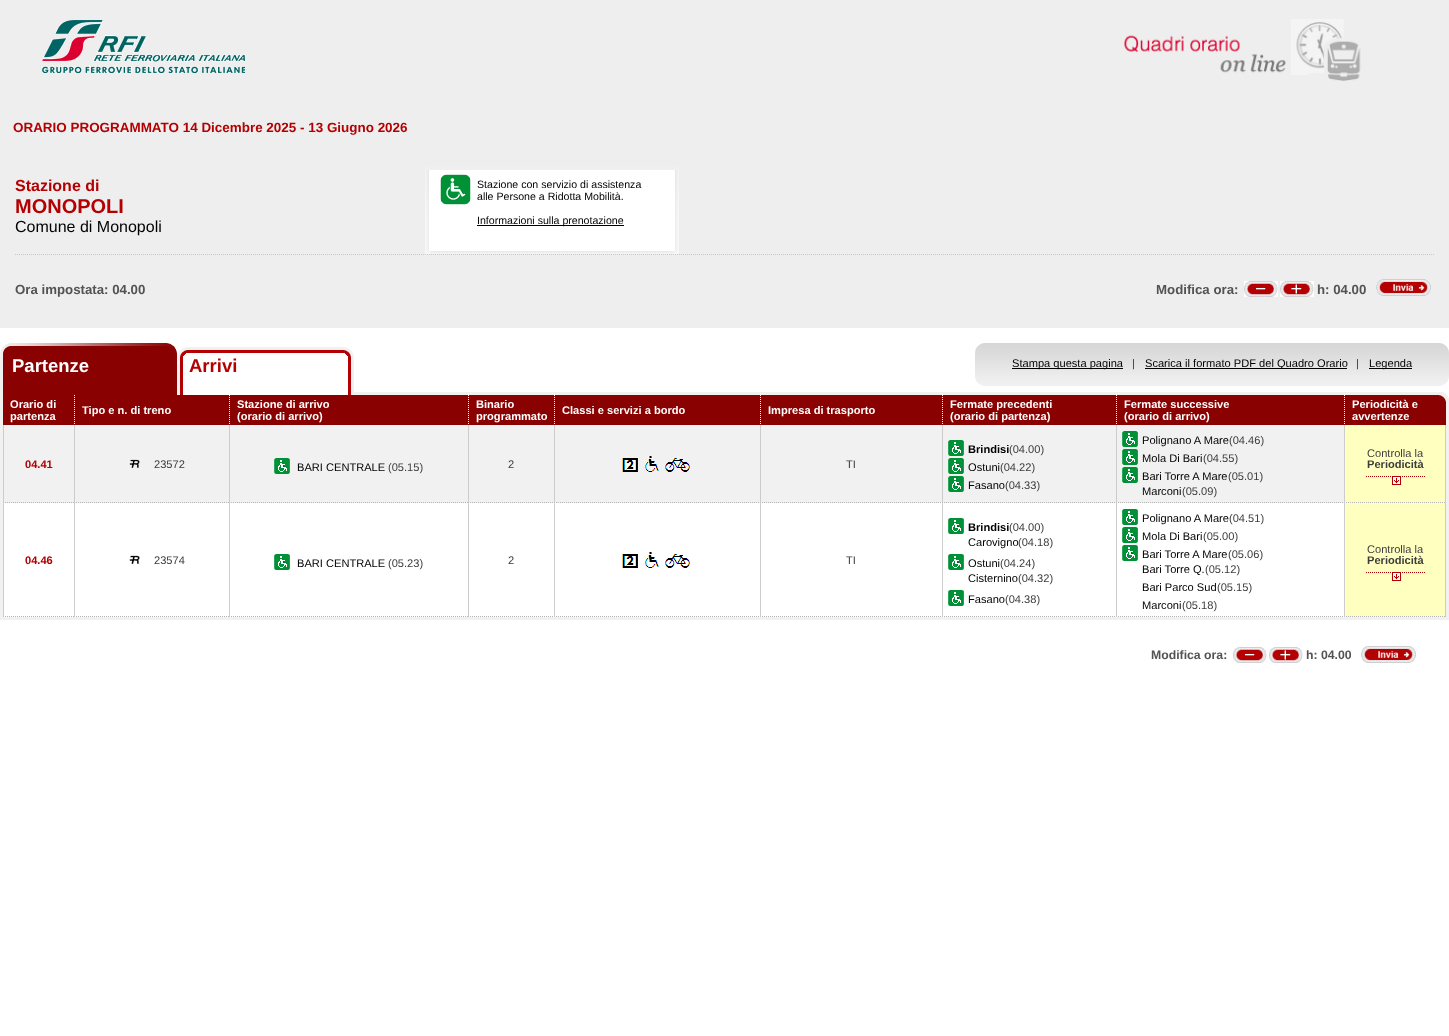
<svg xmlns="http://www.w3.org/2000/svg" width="1449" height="1036">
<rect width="100%" height="100%" fill="#fff"/>
<rect width="1449" height="328" fill="#eee"/>
<image x="42" y="20" width="203" height="53" href="media/1.png"/>
<image x="1124" y="19" width="237" height="62" href="media/2.png"/>
<text x="13" y="132" style="font-family:Liberation Sans;font-size:13.45px;font-weight:bold;fill:#b30002">ORARIO PROGRAMMATO 14 Dicembre 2025 - 13 Giugno 2026</text>
<path d="M15 254.5h1419" fill="none" stroke="#c8c8c8" stroke-dasharray="1 1"/>
<text x="15" y="191" style="font-family:Liberation Sans;font-size:16px;font-weight:bold;fill:#b30002">Stazione di</text>
<text x="15" y="213" style="font-family:Liberation Sans;font-size:20px;font-weight:bold;fill:#b30002">MONOPOLI</text>
<text x="15" y="232" style="font-family:Liberation Sans;font-size:16px;fill:#000">Comune di Monopoli</text>
<image x="425" y="166" width="254" height="88" href="media/3.png"/>
<rect x="427" y="166" width="250" height="4" fill="#efefef"/>
<image x="427" y="251" width="250" height="3" href="media/4.png"/>
<image x="440" y="174" width="31" height="31" href="media/5.png"/>
<text x="477" y="188" style="font-family:Liberation Sans;font-size:10.6px;fill:#000">Stazione con servizio di assistenza</text>
<text x="477" y="200" style="font-family:Liberation Sans;font-size:10.6px;fill:#000">alle Persone a Ridotta Mobilità.</text>
<rect x="477" y="225" width="147" height="1" fill="#000"/>
<text x="477" y="224" style="font-family:Liberation Sans;font-size:10.6px;fill:#000">Informazioni sulla prenotazione</text>
<text x="15" y="294" style="font-family:Liberation Sans;font-size:13.25px;font-weight:bold;fill:#535353">Ora impostata: 04.00</text>
<text x="1156" y="294" style="font-family:Liberation Sans;font-size:13.25px;font-weight:bold;fill:#535353">Modifica ora:</text>
<image x="1244" y="281" width="34" height="16" href="media/6.png"/>
<image x="1280" y="281" width="34" height="16" href="media/7.png"/>
<text x="1317" y="294" style="font-family:Liberation Sans;font-size:13.25px;font-weight:bold;fill:#535353">h: 04.00</text>
<image x="1376" y="279" width="55" height="17" href="media/8.png"/>
<rect x="354" y="392" width="1095" height="3" fill="#f1f1f1"/>
<image x="1443" y="392" width="6" height="3" href="media/9.png"/>
<image x="0" y="343" width="177" height="52" href="media/10.png"/>
<text x="12" y="372" style="font-family:Liberation Sans;font-size:18.5px;font-weight:bold;fill:#fff">Partenze</text>
<image x="177" y="347" width="177" height="48" href="media/11.png"/>
<text x="189" y="372" style="font-family:Liberation Sans;font-size:18.5px;font-weight:bold;fill:#b30002">Arrivi</text>
<image x="975" y="343" width="474" height="34" href="media/12.png"/>
<rect x="1012" y="368" width="111" height="1" fill="#000"/>
<text x="1012" y="367" style="font-family:Liberation Sans;font-size:11.1px;fill:#000">Stampa questa pagina</text>
<text x="1132" y="367" style="font-family:Liberation Sans;font-size:11.1px;fill:#3c3c3c">|</text>
<rect x="1145" y="368" width="202" height="1" fill="#000"/>
<text x="1145" y="367" style="font-family:Liberation Sans;font-size:11.1px;fill:#000">Scarica il formato PDF del Quadro Orario</text>
<text x="1356" y="367" style="font-family:Liberation Sans;font-size:11.1px;fill:#3c3c3c">|</text>
<rect x="1369" y="368" width="43" height="1" fill="#000"/>
<text x="1369" y="367" style="font-family:Liberation Sans;font-size:11.1px;fill:#000">Legenda</text>
<image x="975" y="377" width="474" height="9" href="media/13.png"/>
<rect y="395" width="1449" height="225" fill="#f1f1f1"/>
<image x="1447" y="395" width="2" height="3" href="media/14.png"/>
<rect x="3" y="395" width="1443" height="30" fill="#890101"/>
<path d="M74.5 395v30" fill="none" stroke="#fff" stroke-dasharray="1 1"/>
<text x="10" y="408" style="font-family:Liberation Sans;font-size:11.1px;font-weight:bold;fill:#fff">Orario di</text>
<text x="10" y="420" style="font-family:Liberation Sans;font-size:11.1px;font-weight:bold;fill:#fff">partenza</text>
<path d="M229.5 395v30" fill="none" stroke="#fff" stroke-dasharray="1 1"/>
<text x="82" y="414" style="font-family:Liberation Sans;font-size:11.1px;font-weight:bold;fill:#fff">Tipo e n. di treno</text>
<path d="M468.5 395v30" fill="none" stroke="#fff" stroke-dasharray="1 1"/>
<text x="237" y="408" style="font-family:Liberation Sans;font-size:11.1px;font-weight:bold;fill:#fff">Stazione di arrivo</text>
<text x="237" y="420" style="font-family:Liberation Sans;font-size:11.1px;font-weight:bold;fill:#fff">(orario di arrivo)</text>
<path d="M554.5 395v30" fill="none" stroke="#fff" stroke-dasharray="1 1"/>
<text x="476" y="408" style="font-family:Liberation Sans;font-size:11.1px;font-weight:bold;fill:#fff">Binario</text>
<text x="476" y="420" style="font-family:Liberation Sans;font-size:11.1px;font-weight:bold;fill:#fff">programmato</text>
<path d="M760.5 395v30" fill="none" stroke="#fff" stroke-dasharray="1 1"/>
<text x="562" y="414" style="font-family:Liberation Sans;font-size:11.1px;font-weight:bold;fill:#fff">Classi e servizi a bordo</text>
<path d="M942.5 395v30" fill="none" stroke="#fff" stroke-dasharray="1 1"/>
<text x="768" y="414" style="font-family:Liberation Sans;font-size:11.1px;font-weight:bold;fill:#fff">Impresa di trasporto</text>
<path d="M1116.5 395v30" fill="none" stroke="#fff" stroke-dasharray="1 1"/>
<text x="950" y="408" style="font-family:Liberation Sans;font-size:11.1px;font-weight:bold;fill:#fff">Fermate precedenti</text>
<text x="950" y="420" style="font-family:Liberation Sans;font-size:11.1px;font-weight:bold;fill:#fff">(orario di partenza)</text>
<path d="M1344.5 395v30" fill="none" stroke="#fff" stroke-dasharray="1 1"/>
<text x="1124" y="408" style="font-family:Liberation Sans;font-size:11.1px;font-weight:bold;fill:#fff">Fermate successive</text>
<text x="1124" y="420" style="font-family:Liberation Sans;font-size:11.1px;font-weight:bold;fill:#fff">(orario di arrivo)</text>
<image x="1439" y="395" width="7" height="8" href="media/15.png"/>
<text x="1352" y="408" style="font-family:Liberation Sans;font-size:11.1px;font-weight:bold;fill:#fff">Periodicità e</text>
<text x="1352" y="420" style="font-family:Liberation Sans;font-size:11.1px;font-weight:bold;fill:#fff">avvertenze</text>
<image x="5" y="502" width="69" height="1" href="media/16.png"/>
<rect x="74" y="425" width="1" height="192" fill="#ccc"/>
<rect x="3" y="425" width="1" height="192" fill="#ccc"/>
<text x="25" y="468" style="font-family:Liberation Sans;font-size:11.1px;font-weight:bold;fill:#b30002">04.41</text>
<image x="76" y="502" width="153" height="1" href="media/17.png"/>
<rect x="229" y="425" width="1" height="192" fill="#ccc"/>
<image x="129" y="459" width="11" height="9" href="media/18.png"/>
<text x="154" y="468" style="font-family:Liberation Sans;font-size:11.1px;fill:#3c3c3c">23572</text>
<image x="231" y="502" width="237" height="1" href="media/19.png"/>
<rect x="468" y="425" width="1" height="192" fill="#ccc"/>
<image x="274" y="458" width="16" height="16" href="media/20.png"/>
<text x="297" y="471" style="font-family:Liberation Sans;font-size:11.1px;fill:#000">BARI CENTRALE</text>
<text x="388" y="471" style="font-family:Liberation Sans;font-size:11.1px;fill:#3c3c3c">(05.15)</text>
<image x="470" y="502" width="83" height="1" href="media/21.png"/>
<rect x="554" y="425" width="1" height="192" fill="#ccc"/>
<text x="508" y="468" style="font-family:Liberation Sans;font-size:11.1px;fill:#3c3c3c">2</text>
<image x="556" y="502" width="203" height="1" href="media/22.png"/>
<rect x="760" y="425" width="1" height="192" fill="#ccc"/>
<image x="622" y="458" width="16" height="14" href="media/23.png"/>
<image x="645" y="456" width="14" height="16" href="media/24.png"/>
<image x="665" y="458" width="25" height="14" href="media/25.png"/>
<image x="762" y="502" width="179" height="1" href="media/26.png"/>
<rect x="942" y="425" width="1" height="192" fill="#ccc"/>
<text x="846" y="468" style="font-family:Liberation Sans;font-size:11.1px;fill:#3c3c3c">TI</text>
<image x="944" y="502" width="171" height="1" href="media/27.png"/>
<rect x="1116" y="425" width="1" height="192" fill="#ccc"/>
<image x="948" y="440" width="16" height="16" href="media/20.png"/>
<text x="968" y="453" style="font-family:Liberation Sans;font-size:11.1px;font-weight:bold;fill:#000">Brindisi</text>
<text x="1009" y="453" style="font-family:Liberation Sans;font-size:11.1px;fill:#3c3c3c">(04.00)</text>
<image x="948" y="458" width="16" height="16" href="media/20.png"/>
<text x="968" y="471" style="font-family:Liberation Sans;font-size:11.1px;fill:#000">Ostuni</text>
<text x="1000" y="471" style="font-family:Liberation Sans;font-size:11.1px;fill:#3c3c3c">(04.22)</text>
<image x="948" y="476" width="16" height="16" href="media/20.png"/>
<text x="968" y="489" style="font-family:Liberation Sans;font-size:11.1px;fill:#000">Fasano</text>
<text x="1005" y="489" style="font-family:Liberation Sans;font-size:11.1px;fill:#3c3c3c">(04.33)</text>
<image x="1118" y="502" width="225" height="1" href="media/28.png"/>
<rect x="1344" y="425" width="1" height="192" fill="#ccc"/>
<image x="1122" y="431" width="16" height="16" href="media/20.png"/>
<text x="1142" y="444" style="font-family:Liberation Sans;font-size:11.1px;fill:#000">Polignano A Mare</text>
<text x="1229" y="444" style="font-family:Liberation Sans;font-size:11.1px;fill:#3c3c3c">(04.46)</text>
<image x="1122" y="449" width="16" height="16" href="media/20.png"/>
<text x="1142" y="462" style="font-family:Liberation Sans;font-size:11.1px;fill:#000">Mola Di Bari</text>
<text x="1203" y="462" style="font-family:Liberation Sans;font-size:11.1px;fill:#3c3c3c">(04.55)</text>
<image x="1122" y="467" width="16" height="16" href="media/20.png"/>
<text x="1142" y="480" style="font-family:Liberation Sans;font-size:11.1px;fill:#000">Bari Torre A Mare</text>
<text x="1228" y="480" style="font-family:Liberation Sans;font-size:11.1px;fill:#3c3c3c">(05.01)</text>
<text x="1142" y="495" style="font-family:Liberation Sans;font-size:11.1px;fill:#000">Marconi</text>
<text x="1182" y="495" style="font-family:Liberation Sans;font-size:11.1px;fill:#3c3c3c">(05.09)</text>
<rect x="1345" y="425" width="100" height="192" fill="#ffffc0"/>
<image x="1346" y="502" width="99" height="1" href="media/29.png"/>
<rect x="1445" y="425" width="1" height="192" fill="#ccc"/>
<text x="1367" y="457" style="font-family:Liberation Sans;font-size:11.1px;fill:#3c3c3c">Controlla la</text>
<text x="1367" y="468" style="font-family:Liberation Sans;font-size:11.1px;font-weight:bold;fill:#3c3c3c">Periodicità</text>
<image x="1366" y="476" width="59" height="9" href="media/30.png"/>
<rect x="4" y="503" width="70" height="114" fill="#fff"/>
<image x="5" y="616" width="69" height="1" href="media/31.png"/>
<text x="25" y="564" style="font-family:Liberation Sans;font-size:11.1px;font-weight:bold;fill:#b30002">04.46</text>
<rect x="75" y="503" width="154" height="114" fill="#fff"/>
<image x="76" y="616" width="153" height="1" href="media/32.png"/>
<image x="129" y="555" width="11" height="9" href="media/33.png"/>
<text x="154" y="564" style="font-family:Liberation Sans;font-size:11.1px;fill:#3c3c3c">23574</text>
<rect x="230" y="503" width="238" height="114" fill="#fff"/>
<image x="231" y="616" width="237" height="1" href="media/34.png"/>
<image x="274" y="554" width="16" height="16" href="media/20.png"/>
<text x="297" y="567" style="font-family:Liberation Sans;font-size:11.1px;fill:#000">BARI CENTRALE</text>
<text x="388" y="567" style="font-family:Liberation Sans;font-size:11.1px;fill:#3c3c3c">(05.23)</text>
<rect x="469" y="503" width="85" height="114" fill="#fff"/>
<image x="470" y="616" width="83" height="1" href="media/35.png"/>
<text x="508" y="564" style="font-family:Liberation Sans;font-size:11.1px;fill:#3c3c3c">2</text>
<rect x="555" y="503" width="205" height="114" fill="#fff"/>
<image x="556" y="616" width="203" height="1" href="media/36.png"/>
<image x="622" y="554" width="16" height="14" href="media/23.png"/>
<image x="645" y="552" width="14" height="16" href="media/37.png"/>
<image x="665" y="554" width="25" height="14" href="media/38.png"/>
<rect x="761" y="503" width="181" height="114" fill="#fff"/>
<image x="762" y="616" width="179" height="1" href="media/39.png"/>
<text x="846" y="564" style="font-family:Liberation Sans;font-size:11.1px;fill:#3c3c3c">TI</text>
<rect x="943" y="503" width="173" height="114" fill="#fff"/>
<image x="944" y="616" width="171" height="1" href="media/40.png"/>
<image x="948" y="518" width="16" height="16" href="media/20.png"/>
<text x="968" y="531" style="font-family:Liberation Sans;font-size:11.1px;font-weight:bold;fill:#000">Brindisi</text>
<text x="1009" y="531" style="font-family:Liberation Sans;font-size:11.1px;fill:#3c3c3c">(04.00)</text>
<text x="968" y="546" style="font-family:Liberation Sans;font-size:11.1px;fill:#000">Carovigno</text>
<text x="1018" y="546" style="font-family:Liberation Sans;font-size:11.1px;fill:#3c3c3c">(04.18)</text>
<image x="948" y="554" width="16" height="16" href="media/20.png"/>
<text x="968" y="567" style="font-family:Liberation Sans;font-size:11.1px;fill:#000">Ostuni</text>
<text x="1000" y="567" style="font-family:Liberation Sans;font-size:11.1px;fill:#3c3c3c">(04.24)</text>
<text x="968" y="582" style="font-family:Liberation Sans;font-size:11.1px;fill:#000">Cisternino</text>
<text x="1018" y="582" style="font-family:Liberation Sans;font-size:11.1px;fill:#3c3c3c">(04.32)</text>
<image x="948" y="590" width="16" height="16" href="media/20.png"/>
<text x="968" y="603" style="font-family:Liberation Sans;font-size:11.1px;fill:#000">Fasano</text>
<text x="1005" y="603" style="font-family:Liberation Sans;font-size:11.1px;fill:#3c3c3c">(04.38)</text>
<rect x="1117" y="503" width="227" height="114" fill="#fff"/>
<image x="1118" y="616" width="225" height="1" href="media/41.png"/>
<image x="1122" y="509" width="16" height="16" href="media/20.png"/>
<text x="1142" y="522" style="font-family:Liberation Sans;font-size:11.1px;fill:#000">Polignano A Mare</text>
<text x="1229" y="522" style="font-family:Liberation Sans;font-size:11.1px;fill:#3c3c3c">(04.51)</text>
<image x="1122" y="527" width="16" height="16" href="media/20.png"/>
<text x="1142" y="540" style="font-family:Liberation Sans;font-size:11.1px;fill:#000">Mola Di Bari</text>
<text x="1203" y="540" style="font-family:Liberation Sans;font-size:11.1px;fill:#3c3c3c">(05.00)</text>
<image x="1122" y="545" width="16" height="16" href="media/20.png"/>
<text x="1142" y="558" style="font-family:Liberation Sans;font-size:11.1px;fill:#000">Bari Torre A Mare</text>
<text x="1228" y="558" style="font-family:Liberation Sans;font-size:11.1px;fill:#3c3c3c">(05.06)</text>
<text x="1142" y="573" style="font-family:Liberation Sans;font-size:11.1px;fill:#000">Bari Torre Q.</text>
<text x="1205" y="573" style="font-family:Liberation Sans;font-size:11.1px;fill:#3c3c3c">(05.12)</text>
<text x="1142" y="591" style="font-family:Liberation Sans;font-size:11.1px;fill:#000">Bari Parco Sud</text>
<text x="1217" y="591" style="font-family:Liberation Sans;font-size:11.1px;fill:#3c3c3c">(05.15)</text>
<text x="1142" y="609" style="font-family:Liberation Sans;font-size:11.1px;fill:#000">Marconi</text>
<text x="1182" y="609" style="font-family:Liberation Sans;font-size:11.1px;fill:#3c3c3c">(05.18)</text>
<image x="1346" y="616" width="99" height="1" href="media/29.png"/>
<text x="1367" y="553" style="font-family:Liberation Sans;font-size:11.1px;fill:#3c3c3c">Controlla la</text>
<text x="1367" y="564" style="font-family:Liberation Sans;font-size:11.1px;font-weight:bold;fill:#3c3c3c">Periodicità</text>
<image x="1366" y="572" width="59" height="9" href="media/30.png"/>
<text x="1151" y="659" style="font-family:Liberation Sans;font-size:12.25px;font-weight:bold;fill:#535353">Modifica ora:</text>
<image x="1233" y="647" width="34" height="16" href="media/6.png"/>
<image x="1269" y="647" width="34" height="16" href="media/7.png"/>
<text x="1306" y="659" style="font-family:Liberation Sans;font-size:12.25px;font-weight:bold;fill:#535353">h: 04.00</text>
<image x="1361" y="646" width="55" height="17" href="media/42.png"/>
</svg>
